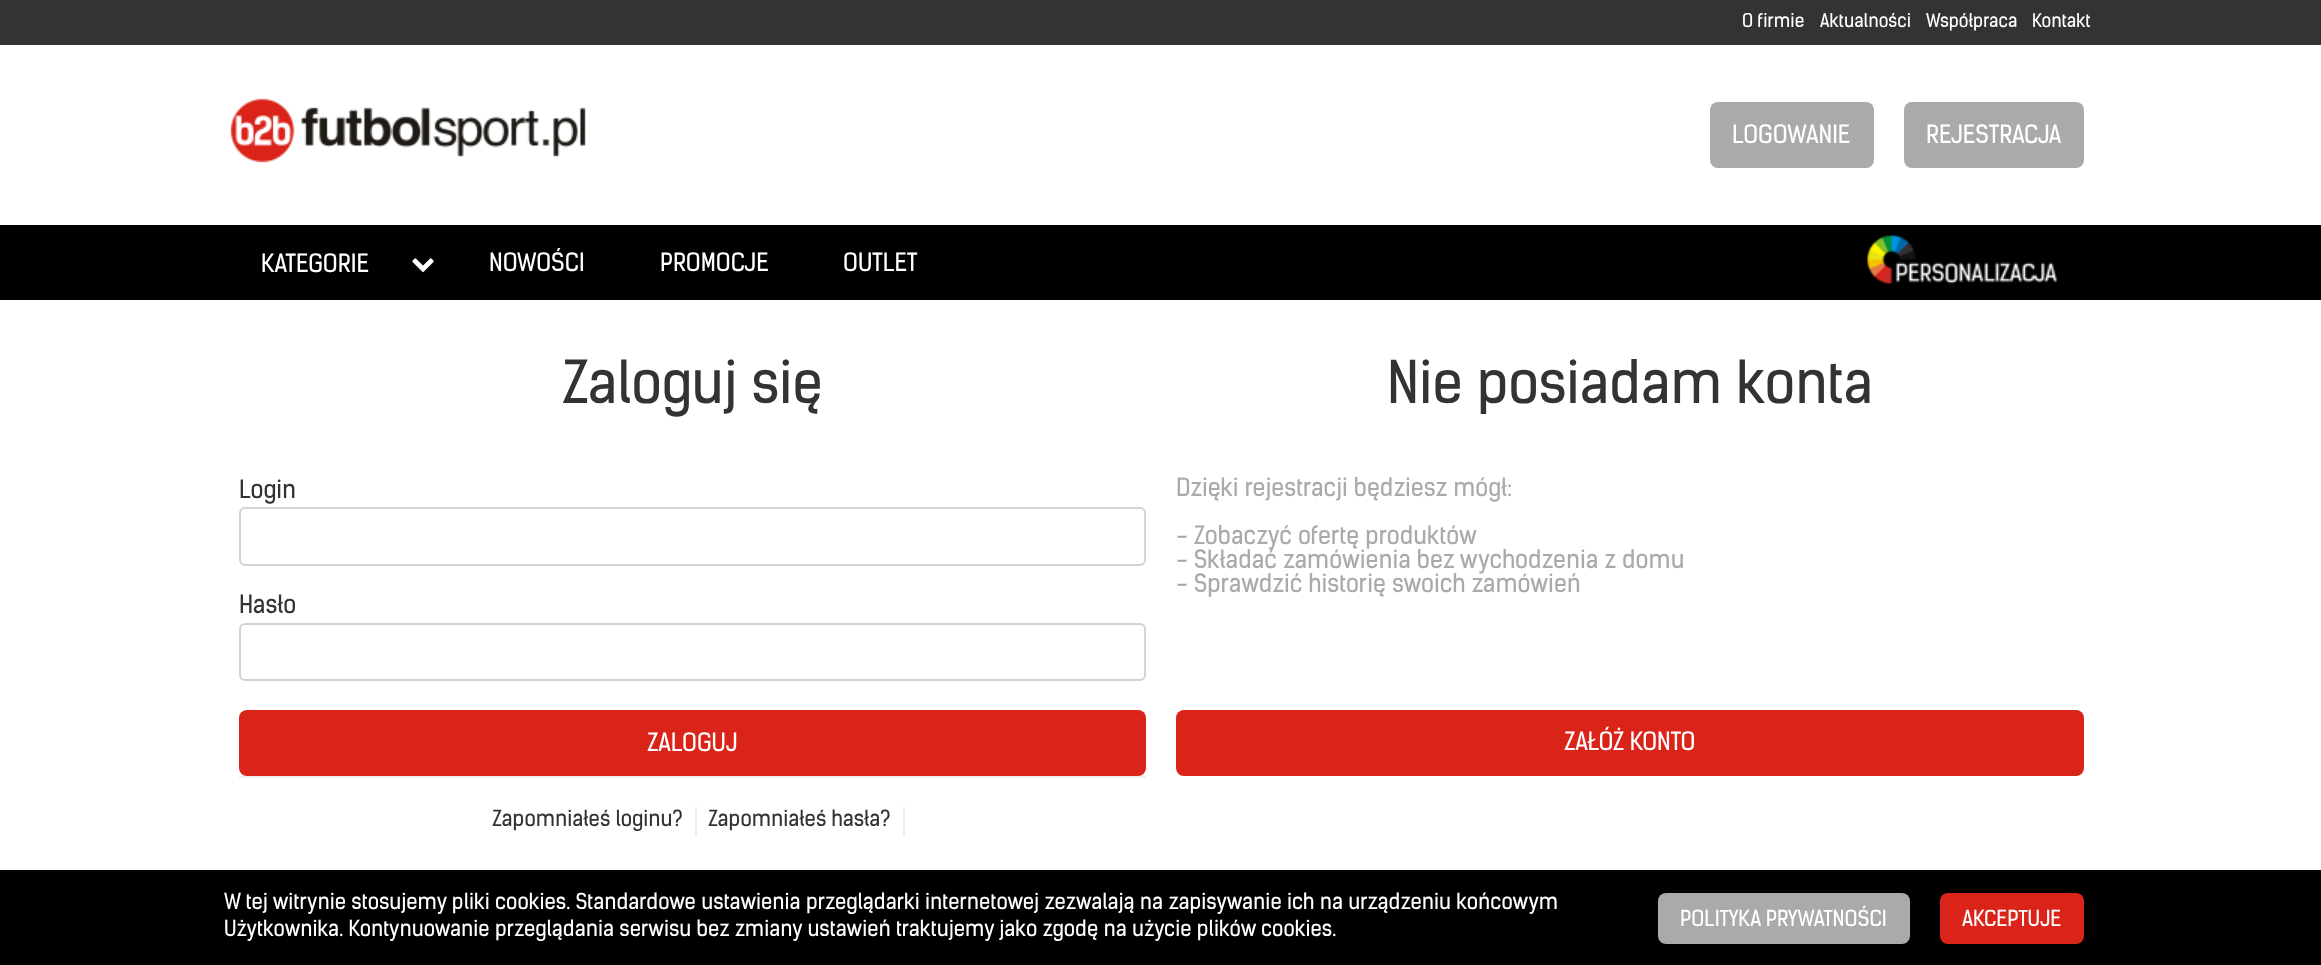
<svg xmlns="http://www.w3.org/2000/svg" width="2321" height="965">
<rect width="100%" height="100%" fill="#fff"/>
<rect width="2321" height="45" fill="#333"/>
<text x="1742" y="27" style="font-family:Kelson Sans;font-size:18px;fill:#fff">O firmie</text>
<text x="1820" y="27" style="font-family:Kelson Sans;font-size:18px;fill:#fff">Aktualności</text>
<text x="1926" y="27" style="font-family:Kelson Sans;font-size:18px;fill:#fff">Współpraca</text>
<text x="2032" y="27" style="font-family:Kelson Sans;font-size:18px;fill:#fff">Kontakt</text>
<image x="230" y="98" width="356" height="65" href="media/1.png"/>
<rect x="1710" y="102" width="164" height="66" rx="8" fill="#aaa"/>
<text x="1732" y="143" style="font-family:Kelson Sans;font-size:24px;fill:#fff">LOGOWANIE</text>
<rect x="1904" y="102" width="180" height="66" rx="8" fill="#aaa"/>
<text x="1926" y="143" style="font-family:Kelson Sans;font-size:24px;fill:#fff">REJESTRACJA</text>
<rect y="225" width="2321" height="75" fill="#000"/>
<text x="261" y="272" style="font-family:Kelson Sans;font-size:24px;fill:#fff">KATEGORIE</text>
<image x="412" y="258" width="22" height="14" href="media/2.png"/>
<text x="489" y="271" style="font-family:Kelson Sans;font-size:24px;fill:#fff">NOWOŚCI</text>
<text x="660" y="271" style="font-family:Kelson Sans;font-size:24px;fill:#fff">PROMOCJE</text>
<text x="843" y="271" style="font-family:Kelson Sans;font-size:24px;fill:#fff">OUTLET</text>
<image x="1867" y="235" width="190" height="49" href="media/3.png"/>
<text x="562" y="403" style="font-family:Kelson Sans;font-size:56.25px;fill:#333">Zaloguj się</text>
<text x="239" y="498" style="font-family:Kelson Sans;font-size:24px;fill:#333">Login</text>
<rect x="240" y="508" width="905" height="57" rx="5" fill="none" stroke="#ced4da" stroke-width="2"/>
<text x="239" y="613" style="font-family:Kelson Sans;font-size:24px;fill:#333">Hasło</text>
<rect x="240" y="624" width="905" height="56" rx="5" fill="none" stroke="#ced4da" stroke-width="2"/>
<rect x="239" y="710" width="907" height="66" rx="8" fill="#da241a"/>
<text x="647" y="751" style="font-family:Kelson Sans;font-size:24px;fill:#fff">ZALOGUJ</text>
<rect x="239" y="776" width="907" height="2" fill="#eee"/>
<text x="492" y="826" style="font-family:Kelson Sans;font-size:21px;fill:#333">Zapomniałeś loginu?</text>
<rect x="903" y="807" width="2" height="29" fill="#eee"/>
<rect x="695" y="807" width="2" height="29" fill="#eee"/>
<text x="708" y="826" style="font-family:Kelson Sans;font-size:21px;fill:#333">Zapomniałeś hasła?</text>
<text x="1387" y="403" style="font-family:Kelson Sans;font-size:56.25px;fill:#333">Nie posiadam konta</text>
<text x="1176" y="496" style="font-family:Kelson Sans;font-size:24px;fill:#aaa">Dzięki rejestracji będziesz mógł:</text>
<text x="1176" y="544" style="font-family:Kelson Sans;font-size:24px;fill:#aaa">- Zobaczyć ofertę produktów</text>
<text x="1176" y="568" style="font-family:Kelson Sans;font-size:24px;fill:#aaa">- Składać zamówienia bez wychodzenia z domu</text>
<text x="1176" y="592" style="font-family:Kelson Sans;font-size:24px;fill:#aaa">- Sprawdzić historię swoich zamówień</text>
<rect x="1176" y="710" width="908" height="66" rx="8" fill="#da241a"/>
<text x="1564" y="750" style="font-family:Kelson Sans;font-size:24px;fill:#fff">ZAŁÓŻ KONTO</text>
<rect y="870" width="2321" height="95" fill="#000"/>
<text x="224" y="909" style="font-family:Kelson Sans;font-size:21px;fill:#fff">W tej witrynie stosujemy pliki cookies. Standardowe ustawienia przeglądarki internetowej zezwalają na zapisywanie ich na urządzeniu końcowym</text>
<text x="224" y="936" style="font-family:Kelson Sans;font-size:21px;fill:#fff">Użytkownika. Kontynuowanie przeglądania serwisu bez zmiany ustawień traktujemy jako zgodę na użycie plików cookies.</text>
<rect x="1658" y="893" width="252" height="51" rx="8" fill="#aaa"/>
<text x="1680" y="926" style="font-family:Kelson Sans;font-size:21px;fill:#fff">POLITYKA PRYWATNOŚCI</text>
<rect x="1940" y="893" width="144" height="51" rx="8" fill="#da241a"/>
<text x="1962" y="926" style="font-family:Kelson Sans;font-size:21px;fill:#fff">AKCEPTUJE</text>
</svg>
